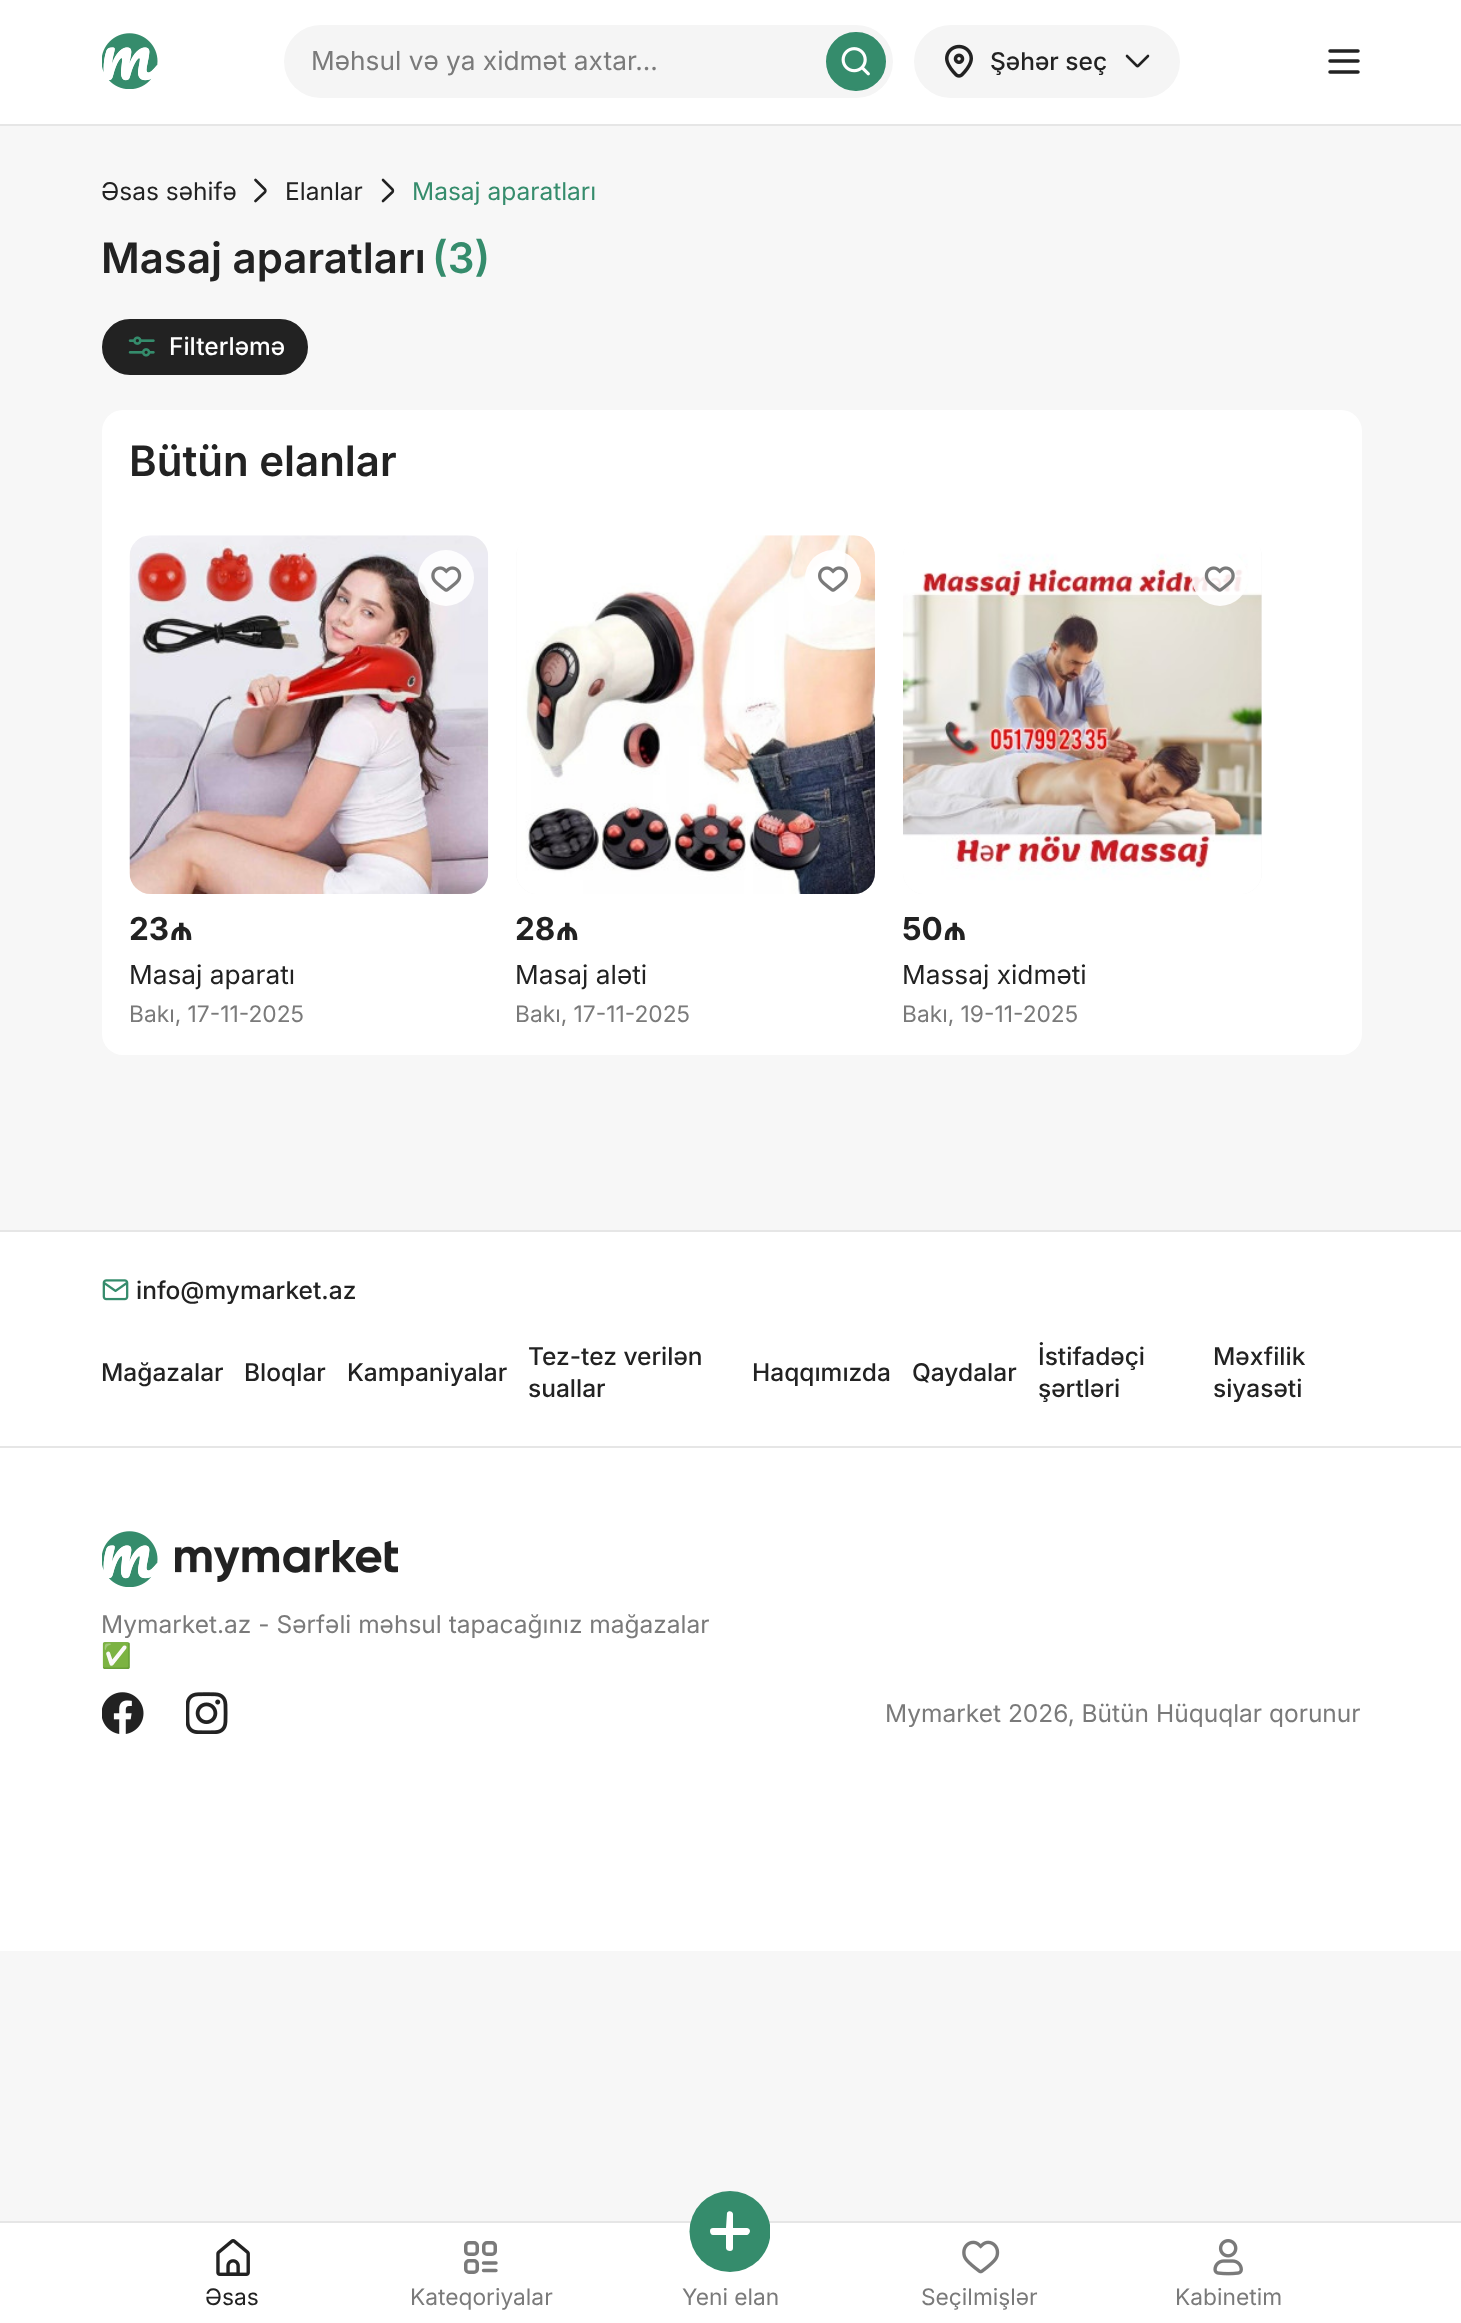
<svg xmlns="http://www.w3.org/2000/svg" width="1461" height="2323">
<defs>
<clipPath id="clip1"><rect x="689" y="2191" width="81" height="81"/></clipPath>
</defs>
<rect width="100%" height="100%" fill="#f7f7f7"/>
<rect width="1461" height="124" fill="#fff"/>
<rect y="124" width="1461" height="2" fill="#e6e6e6"/>
<image x="102" y="33" width="56" height="56" href="media/1.png"/>
<rect x="284" y="25" width="609" height="73" rx="36.5" fill="#f5f5f5"/>
<text x="311" y="70" style="font-family:Inter;font-size:26.25px;fill:#7a7a7a">Məhsul və ya xidmət axtar...</text>
<rect x="827" y="33" width="58" height="57" rx="28.5" fill="#358c6c" stroke="#358c6c" stroke-width="2"/>
<image x="841" y="47" width="29" height="29" href="media/2.png"/>
<rect x="914" y="25" width="266" height="73" rx="36.5" fill="#f5f5f5"/>
<image x="945" y="44" width="28" height="34" href="media/3.png"/>
<text x="990" y="70" style="font-family:Inter;font-size:24.5px;font-weight:500;fill:#222">Şəhər seç</text>
<path d="M1127 56l9.5 9.5c.5 .5 1.5 .5 2 0l9.5-9.5" fill="none" stroke="#222" stroke-width="2.6" stroke-linecap="round"/>
<path d="M1330 51h28m-28 10h28m-28 11h28" fill="none" stroke="#222" stroke-width="3.5" stroke-linecap="round"/>
<text x="101" y="200" style="font-family:Inter;font-size:24.5px;fill:#222">Əsas səhifə</text>
<path d="M255.5 180l9.5 9.5c.5 .5 .5 2 0 2.5l-9.5 9" fill="none" stroke="#222" stroke-width="2.6" stroke-linecap="round"/>
<text x="285" y="200" style="font-family:Inter;font-size:24.5px;fill:#222">Elanlar</text>
<path d="M383 180l9.5 9.5c.5 .5 .5 2 0 2.5l-9.5 9" fill="none" stroke="#222" stroke-width="2.6" stroke-linecap="round"/>
<text x="412" y="200" style="font-family:Inter;font-size:24.5px;fill:#358c6c">Masaj aparatları</text>
<text x="101" y="273" style="font-family:Inter;font-size:42px;font-weight:600;fill:#222">Masaj aparatları</text>
<text x="432" y="273" style="font-family:Inter;font-size:42px;font-weight:600;fill:#358c6c">(3)</text>
<rect x="103" y="320" width="204" height="54" rx="27" fill="#222" stroke="#222" stroke-width="2"/>
<image x="128" y="336" width="27" height="21" href="media/4.png"/>
<text x="169" y="355" style="font-family:Inter;font-size:24.5px;font-weight:500;fill:#fff">Filterləmə</text>
<rect x="102" y="410" width="1260" height="645" rx="21" fill="#fff"/>
<text x="129" y="476" style="font-family:Inter;font-size:42px;font-weight:600;fill:#222">Bütün elanlar</text>
<image x="129" y="535" width="360" height="359" href="media/5.png"/>
<circle cx="446" cy="578" r="28" fill="#ffffffe6"/>
<image x="431" y="566" width="31" height="26" href="media/6.png"/>
<text x="129" y="940" style="font-family:Inter;font-size:31.5px;font-weight:bold;fill:#222">23₼</text>
<text x="129" y="984" style="font-family:Inter;font-size:26.25px;fill:#222">Masaj aparatı</text>
<text x="129" y="1022" style="font-family:Inter;font-size:22.75px;fill:#7a7a7a">Bakı, 17-11-2025</text>
<rect x="516" y="536" width="359" height="358" rx="21" fill="#f7f7f7"/>
<image x="516" y="535" width="359" height="359" href="media/7.png"/>
<circle cx="833" cy="578" r="28" fill="#ffffffe6"/>
<image x="818" y="566" width="30" height="26" href="media/8.png"/>
<text x="515" y="940" style="font-family:Inter;font-size:31.5px;font-weight:bold;fill:#222">28₼</text>
<text x="515" y="984" style="font-family:Inter;font-size:26.25px;fill:#222">Masaj aləti</text>
<text x="515" y="1022" style="font-family:Inter;font-size:22.75px;fill:#7a7a7a">Bakı, 17-11-2025</text>
<rect x="903" y="536" width="359" height="358" rx="21" fill="#f7f7f7"/>
<image x="903" y="536" width="359" height="358" href="media/9.png"/>
<circle cx="1220" cy="578" r="28" fill="#ffffffe6"/>
<image x="1204" y="566" width="31" height="26" href="media/10.png"/>
<text x="902" y="940" style="font-family:Inter;font-size:31.5px;font-weight:bold;fill:#222">50₼</text>
<text x="902" y="984" style="font-family:Inter;font-size:26.25px;fill:#222">Massaj xidməti</text>
<text x="902" y="1022" style="font-family:Inter;font-size:22.75px;fill:#7a7a7a">Bakı, 19-11-2025</text>
<rect y="1232" width="1461" height="719" fill="#fff"/>
<rect y="1230" width="1461" height="2" fill="#e6e6e6"/>
<image x="102" y="1279" width="27" height="22" href="media/11.png"/>
<text x="136" y="1299" style="font-family:Inter;font-size:24.5px;font-weight:500;fill:#222">info@mymarket.az</text>
<text x="101" y="1381" style="font-family:Inter;font-size:24.5px;font-weight:500;fill:#222">Mağazalar</text>
<text x="244" y="1381" style="font-family:Inter;font-size:24.5px;font-weight:500;fill:#222">Bloqlar</text>
<text x="347" y="1381" style="font-family:Inter;font-size:24.5px;font-weight:500;fill:#222">Kampaniyalar</text>
<text x="528" y="1365" style="font-family:Inter;font-size:24.5px;font-weight:500;fill:#222">Tez-tez verilən</text>
<text x="528" y="1397" style="font-family:Inter;font-size:24.5px;font-weight:500;fill:#222">suallar</text>
<text x="752" y="1381" style="font-family:Inter;font-size:24.5px;font-weight:500;fill:#222">Haqqımızda</text>
<text x="912" y="1381" style="font-family:Inter;font-size:24.5px;font-weight:500;fill:#222">Qaydalar</text>
<text x="1038" y="1365" style="font-family:Inter;font-size:24.5px;font-weight:500;fill:#222">İstifadəçi</text>
<text x="1038" y="1397" style="font-family:Inter;font-size:24.5px;font-weight:500;fill:#222">şərtləri</text>
<text x="1213" y="1365" style="font-family:Inter;font-size:24.5px;font-weight:500;fill:#222">Məxfilik</text>
<text x="1213" y="1397" style="font-family:Inter;font-size:24.5px;font-weight:500;fill:#222">siyasəti</text>
<rect y="1446" width="1461" height="2" fill="#e6e6e6"/>
<image x="102" y="1531" width="296" height="56" href="media/12.png"/>
<text x="101" y="1633" style="font-family:Inter;font-size:24.5px;fill:#7a7a7a">Mymarket.az - Sərfəli məhsul tapacağınız mağazalar</text>
<text x="101" y="1664" style="font-family:Noto Color Emoji;font-size:24.5px;fill:#7a7a7a">✅</text>
<image x="102" y="1692" width="42" height="42" href="media/13.png"/>
<image x="186" y="1692" width="42" height="42" href="media/14.png"/>
<text x="885" y="1722" style="font-family:Inter;font-size:24.5px;fill:#7a7a7a">Mymarket 2026, Bütün Hüquqlar qorunur</text>
<rect y="2223" width="1461" height="100" fill="#fff"/>
<rect y="2221" width="1461" height="2" fill="#e6e6e6"/>
<image x="216" y="2239" width="34" height="37" href="media/15.png"/>
<text x="205" y="2305" style="font-family:Inter;font-size:22.75px;fill:#222">Əsas</text>
<rect x="465.75" y="2242.75" width="11.5" height="11.5" rx="3.25" fill="none" stroke="#7a7a7a" stroke-width="3.5"/>
<rect x="465.75" y="2260.75" width="11.5" height="11.5" rx="3.25" fill="none" stroke="#7a7a7a" stroke-width="3.5"/>
<rect x="483.75" y="2242.75" width="11.5" height="11.5" rx="3.25" fill="none" stroke="#7a7a7a" stroke-width="3.5"/>
<path d="M483.5 2263h12.5m-12.5 7.5h12.5" fill="none" stroke="#7a7a7a" stroke-width="3.4" stroke-linecap="round"/>
<text x="410" y="2305" style="font-family:Inter;font-size:22.75px;fill:#7a7a7a">Kateqoriyalar</text>
<g clip-path="url(#clip1)">
<circle cx="730" cy="2231.5" r="40.5" fill="#358c6c"/>
</g>
<path d="M733 2214c0-3-5-4-6-1l-1 15h-13c-2 0-3 1-3 3c0 2 1 4 3 4h13v13c0 2 2 3 4 3c2 0 3-1 3-3v-13h14c1 0 3-2 3-4c0-2-2-3-3-3h-14z" fill="#fff" fill-rule="evenodd"/>
<text x="682" y="2305" style="font-family:Inter;font-size:22.75px;fill:#7a7a7a">Yeni elan</text>
<image x="962" y="2240" width="38" height="34" href="media/16.png"/>
<text x="921" y="2305" style="font-family:Inter;font-size:22.75px;fill:#7a7a7a">Seçilmişlər</text>
<image x="1213" y="2239" width="30" height="37" href="media/17.png"/>
<text x="1175" y="2305" style="font-family:Inter;font-size:22.75px;fill:#7a7a7a">Kabinetim</text>
</svg>
